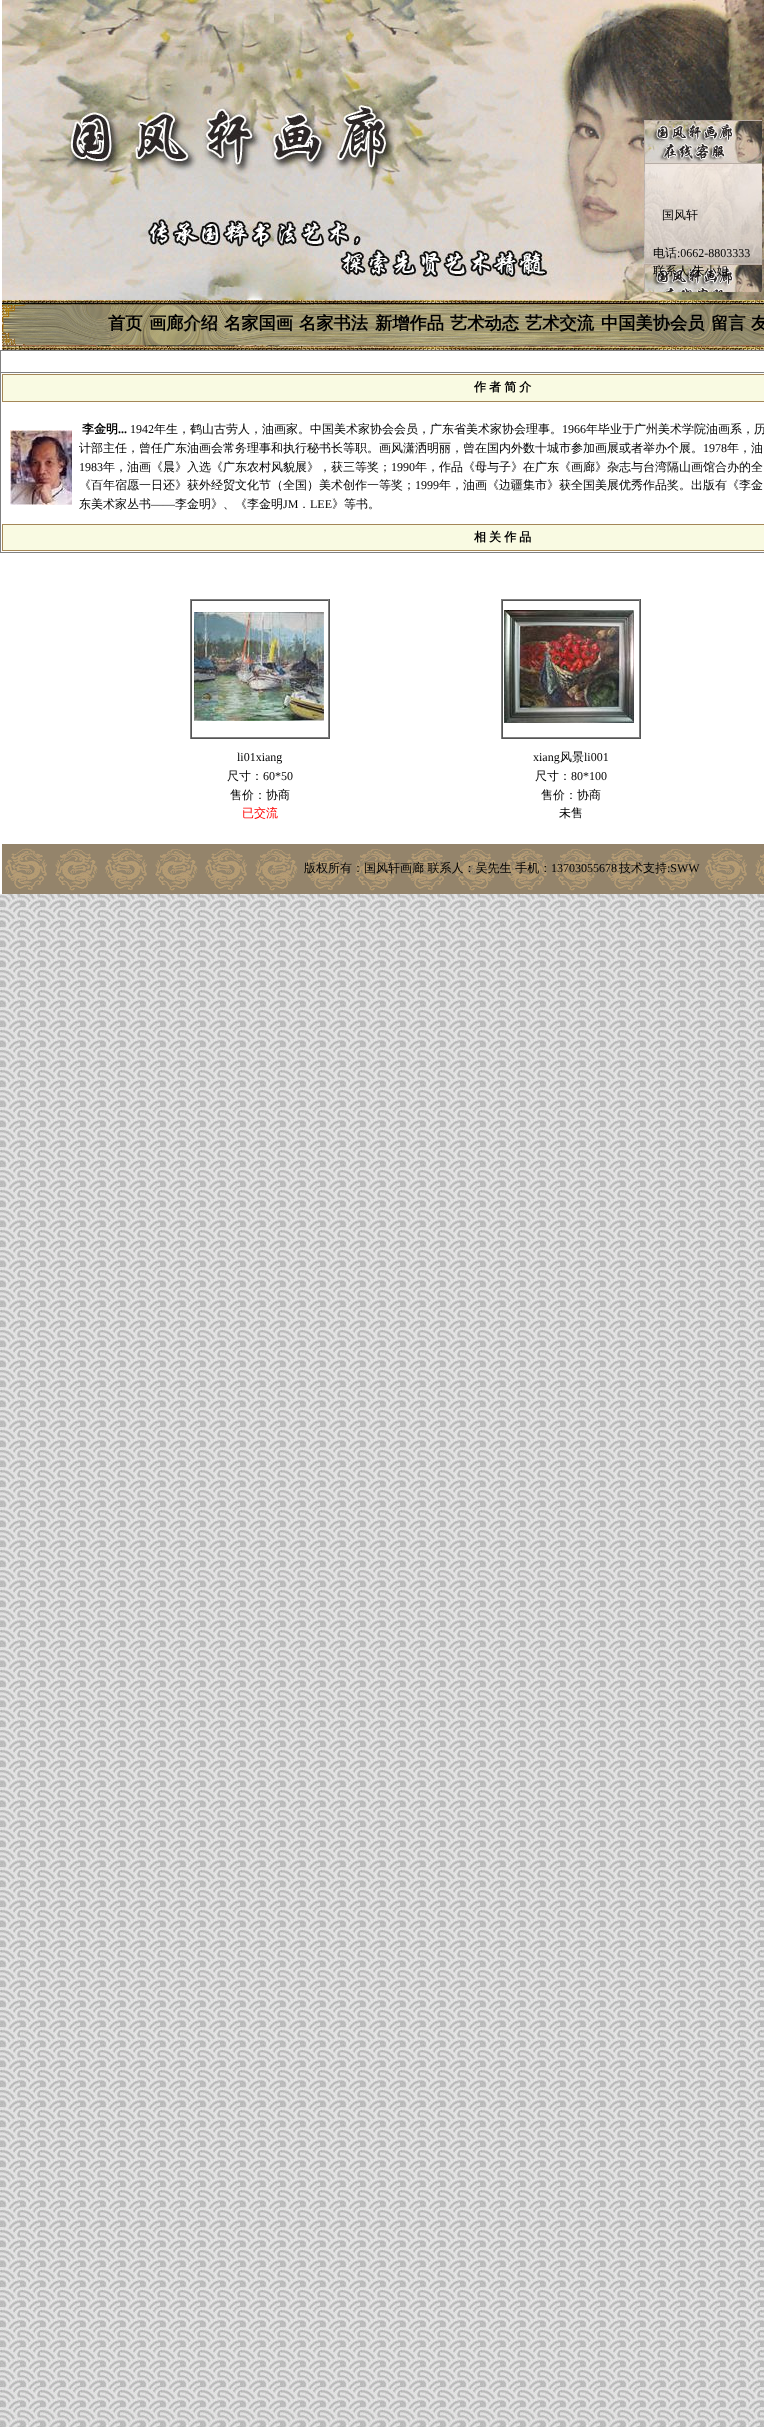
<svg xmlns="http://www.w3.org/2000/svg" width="764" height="2427">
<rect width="100%" height="100%" fill="#fff"/>
<image x="0" y="894" width="764" height="1533" href="media/1.png"/>
<image x="2" y="0" width="762" height="300" href="media/4.png"/>
<image x="644" y="120" width="118" height="172" href="media/2.png"/>
<text x="662" y="219" style="font-family:WenQuanYi Zen Hei;font-size:12px;font-weight:500;fill:#000">国风轩</text>
<text x="653" y="257" style="font-family:WenQuanYi Zen Hei;font-size:12px;font-weight:500;fill:#000">电话</text>
<text x="677" y="257" style="font-family:Liberation Serif;font-size:12px;fill:#000">:0662-8803333</text>
<text x="653" y="275" style="font-family:WenQuanYi Zen Hei;font-size:12px;font-weight:500;fill:#000">联系人 朱小姐</text>
<text x="689" y="275" style="font-family:Liberation Serif;font-size:12px;fill:#000">:</text>
<image x="2" y="844" width="762" height="50" href="media/3.png"/>
<text x="304" y="872" style="font-family:WenQuanYi Zen Hei;font-size:12px;font-weight:500;fill:#000">版权所有：国风轩画廊 联系人：吴先生 手机：</text>
<text x="551" y="872" style="font-family:Liberation Serif;font-size:12px;fill:#000">13703055678</text>
<text x="619" y="872" style="font-family:WenQuanYi Zen Hei;font-size:12px;font-weight:500;fill:#000">技术支持</text>
<text x="667" y="872" style="font-family:Liberation Serif;font-size:12px;fill:#000">:SWW</text>
<image x="2" y="300" width="762" height="50" href="media/5.png"/>
<text x="108" y="329" style="font-family:WenQuanYi Zen Hei;font-size:17.25px;font-weight:bold;fill:#000">首页</text>
<text x="149" y="329" style="font-family:WenQuanYi Zen Hei;font-size:17.25px;font-weight:bold;fill:#000">画廊介绍</text>
<text x="224" y="329" style="font-family:WenQuanYi Zen Hei;font-size:17.25px;font-weight:bold;fill:#000">名家国画</text>
<text x="299" y="329" style="font-family:WenQuanYi Zen Hei;font-size:17.25px;font-weight:bold;fill:#000">名家书法</text>
<text x="375" y="329" style="font-family:WenQuanYi Zen Hei;font-size:17.25px;font-weight:bold;fill:#000">新增作品</text>
<text x="450" y="329" style="font-family:WenQuanYi Zen Hei;font-size:17.25px;font-weight:bold;fill:#000">艺术动态</text>
<text x="525" y="329" style="font-family:WenQuanYi Zen Hei;font-size:17.25px;font-weight:bold;fill:#000">艺术交流</text>
<text x="601" y="329" style="font-family:WenQuanYi Zen Hei;font-size:17.25px;font-weight:bold;fill:#000">中国美协会员</text>
<text x="711" y="329" style="font-family:WenQuanYi Zen Hei;font-size:17.25px;font-weight:bold;fill:#000">留言</text>
<text x="751" y="329" style="font-family:WenQuanYi Zen Hei;font-size:17.25px;font-weight:bold;fill:#000">友</text>
<rect y="350" width="764" height="1" fill="#808080"/>
<rect y="552" width="764" height="1" fill="#808080"/>
<rect y="350" width="1" height="203" fill="#808080"/>
<rect y="372" width="764" height="1" fill="#808080"/>
<rect x="2" y="374" width="762" height="28" fill="#a48757"/>
<rect x="3" y="375" width="761" height="26" fill="#f9fae2"/>
<text x="474" y="391" word-spacing="-0.5" style="font-family:WenQuanYi Zen Hei;font-size:12px;font-weight:bold;fill:#000">作 者 简 介</text>
<image x="10" y="430" width="62" height="75" href="media/6.png"/>
<text x="82" y="433" style="font-family:WenQuanYi Zen Hei;font-size:12px;font-weight:bold;fill:#000">李金明</text>
<text x="118" y="433" style="font-family:Liberation Serif;font-size:12px;font-weight:bold;fill:#000">...</text>
<text x="130" y="433" style="font-family:Liberation Serif;font-size:12px;fill:#000">1942</text>
<text x="154" y="433" style="font-family:WenQuanYi Zen Hei;font-size:12px;font-weight:500;fill:#000">年生，鹤山古劳人，油画家。中国美术家协会会员，广东省美术家协会理事。</text>
<text x="562" y="433" style="font-family:Liberation Serif;font-size:12px;fill:#000">1966</text>
<text x="586" y="433" style="font-family:WenQuanYi Zen Hei;font-size:12px;font-weight:500;fill:#000">年毕业于广州美术学院油画系，历</text>
<text x="79" y="452" style="font-family:WenQuanYi Zen Hei;font-size:12px;font-weight:500;fill:#000">计部主任，曾任广东油画会常务理事和执行秘书长等职。画风潇洒明丽，曾在国内外数十城市参加画展或者举办个展。</text>
<text x="703" y="452" style="font-family:Liberation Serif;font-size:12px;fill:#000">1978</text>
<text x="727" y="452" style="font-family:WenQuanYi Zen Hei;font-size:12px;font-weight:500;fill:#000">年，油</text>
<text x="79" y="471" style="font-family:Liberation Serif;font-size:12px;fill:#000">1983</text>
<text x="103" y="471" style="font-family:WenQuanYi Zen Hei;font-size:12px;font-weight:500;fill:#000">年，油画《晨》入选《广东农村风貌展》，获三等奖；</text>
<text x="391" y="471" style="font-family:Liberation Serif;font-size:12px;fill:#000">1990</text>
<text x="415" y="471" style="font-family:WenQuanYi Zen Hei;font-size:12px;font-weight:500;fill:#000">年，作品《母与子》在广东《画廊》杂志与台湾隔山画馆合办的全</text>
<text x="79" y="489" style="font-family:WenQuanYi Zen Hei;font-size:12px;font-weight:500;fill:#000">《百年宿愿一日还》获外经贸文化节（全国）美术创作一等奖；</text>
<text x="415" y="489" style="font-family:Liberation Serif;font-size:12px;fill:#000">1999</text>
<text x="439" y="489" style="font-family:WenQuanYi Zen Hei;font-size:12px;font-weight:500;fill:#000">年，油画《边疆集市》获全国美展优秀作品奖。出版有《李金</text>
<text x="79" y="508" style="font-family:WenQuanYi Zen Hei;font-size:12px;font-weight:500;fill:#000">东美术家丛书</text>
<text x="151" y="508" style="font-family:Liberation Serif;font-size:12px;fill:#000">——</text>
<text x="175" y="508" style="font-family:WenQuanYi Zen Hei;font-size:12px;font-weight:500;fill:#000">李金明》、《李金明</text>
<text x="283" y="508" style="font-family:Liberation Serif;font-size:12px;fill:#000">JM</text>
<text x="310" y="508" style="font-family:Liberation Serif;font-size:12px;fill:#000">LEE</text>
<text x="332" y="508" style="font-family:WenQuanYi Zen Hei;font-size:12px;font-weight:500;fill:#000">》等书。</text>
<text x="298" y="508" style="font-family:WenQuanYi Zen Hei;font-size:12px;font-weight:500;fill:#000">．</text>
<rect x="2" y="524" width="762" height="27" fill="#a48757"/>
<rect x="3" y="525" width="761" height="25" fill="#f9fae2"/>
<text x="474" y="541" word-spacing="-0.5" style="font-family:WenQuanYi Zen Hei;font-size:12px;font-weight:bold;fill:#000">相 关 作 品</text>
<rect x="190" y="599" width="140" height="1" fill="#808080"/>
<rect x="329" y="599" width="1" height="140" fill="#555"/>
<rect x="190" y="738" width="140" height="1" fill="#555"/>
<rect x="190" y="599" width="1" height="140" fill="#808080"/>
<rect x="191" y="600" width="138" height="1" fill="#555"/>
<rect x="328" y="600" width="1" height="138" fill="#808080"/>
<rect x="191" y="737" width="138" height="1" fill="#808080"/>
<rect x="191" y="600" width="1" height="138" fill="#555"/>
<image x="194" y="612" width="130" height="109" href="media/7.png"/>
<text x="237" y="761" style="font-family:Liberation Serif;font-size:12px;fill:#000">li01xiang</text>
<text x="227" y="780" style="font-family:WenQuanYi Zen Hei;font-size:12px;font-weight:500;fill:#000">尺寸：</text>
<text x="263" y="780" style="font-family:Liberation Serif;font-size:12px;fill:#000">60*50</text>
<text x="230" y="799" style="font-family:WenQuanYi Zen Hei;font-size:12px;font-weight:500;fill:#000">售价：协商</text>
<text x="242" y="817" style="font-family:WenQuanYi Zen Hei;font-size:12px;font-weight:500;fill:#f00">已交流</text>
<rect x="501" y="599" width="140" height="1" fill="#808080"/>
<rect x="640" y="599" width="1" height="140" fill="#555"/>
<rect x="501" y="738" width="140" height="1" fill="#555"/>
<rect x="501" y="599" width="1" height="140" fill="#808080"/>
<rect x="502" y="600" width="138" height="1" fill="#555"/>
<rect x="639" y="600" width="1" height="138" fill="#808080"/>
<rect x="502" y="737" width="138" height="1" fill="#808080"/>
<rect x="502" y="600" width="1" height="138" fill="#555"/>
<image x="504" y="610" width="130" height="113" href="media/8.png"/>
<text x="533" y="761" style="font-family:Liberation Serif;font-size:12px;fill:#000">xiang</text>
<text x="560" y="761" style="font-family:WenQuanYi Zen Hei;font-size:12px;font-weight:500;fill:#000">风景</text>
<text x="584" y="761" style="font-family:Liberation Serif;font-size:12px;fill:#000">li001</text>
<text x="535" y="780" style="font-family:WenQuanYi Zen Hei;font-size:12px;font-weight:500;fill:#000">尺寸：</text>
<text x="571" y="780" style="font-family:Liberation Serif;font-size:12px;fill:#000">80*100</text>
<text x="541" y="799" style="font-family:WenQuanYi Zen Hei;font-size:12px;font-weight:500;fill:#000">售价：协商</text>
<text x="559" y="817" style="font-family:WenQuanYi Zen Hei;font-size:12px;font-weight:500;fill:#000">未售</text>
</svg>
